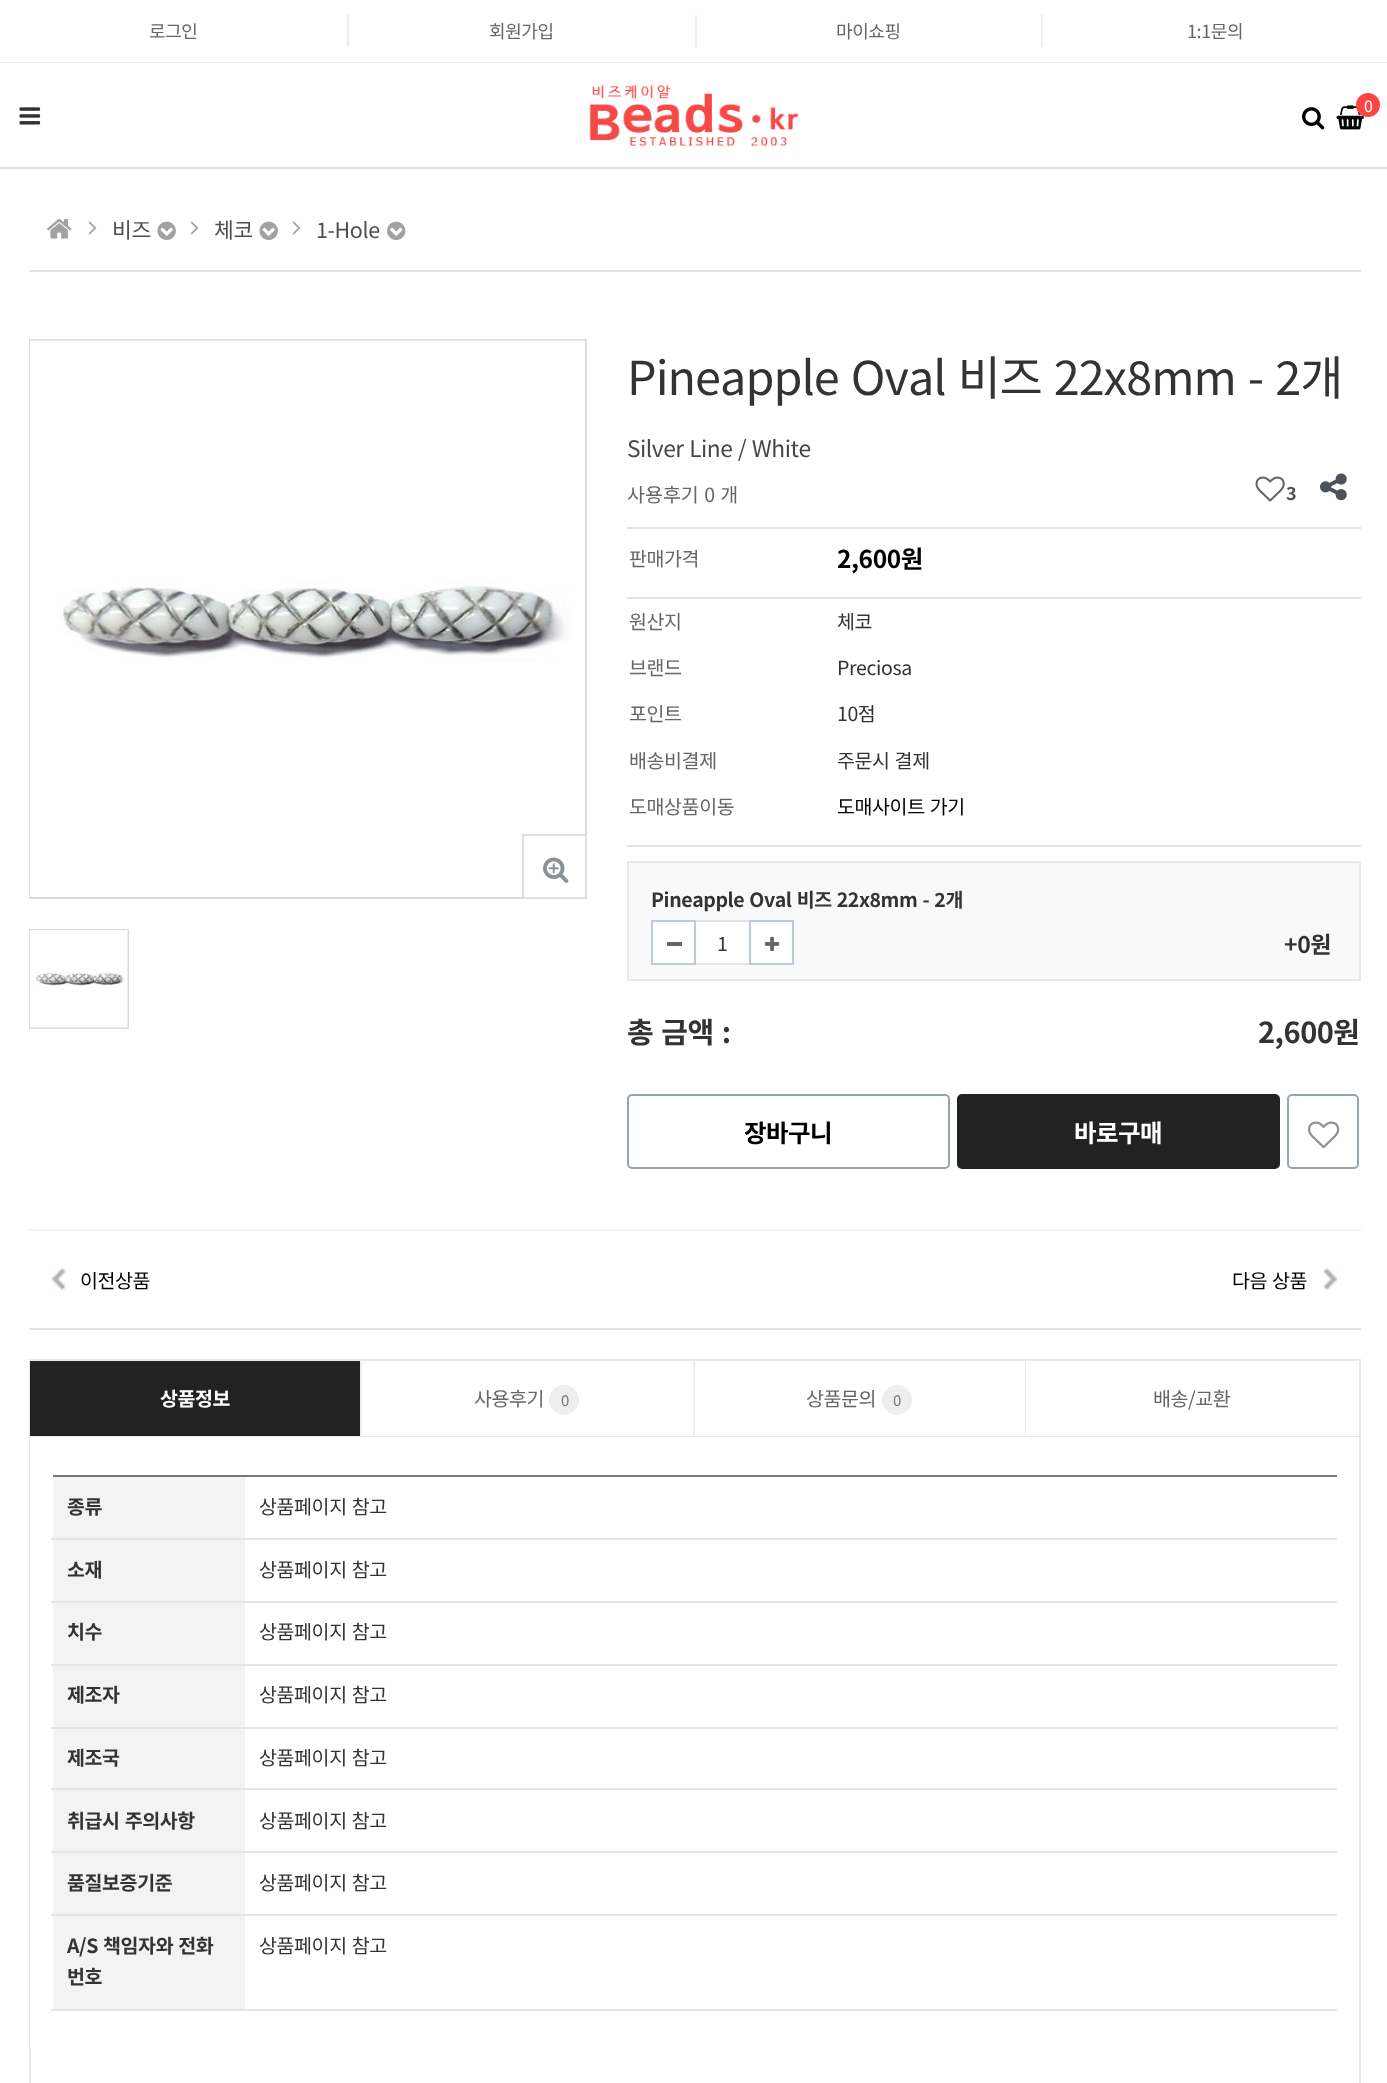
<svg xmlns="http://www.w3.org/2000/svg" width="1387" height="2083">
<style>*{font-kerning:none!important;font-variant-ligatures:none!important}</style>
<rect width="100%" height="100%" fill="#fff"/>
<rect y="62" width="1387" height="1" fill="#eee"/>
<text x="149" y="38" style="font-family:Noto Sans KR;font-size:18px;letter-spacing:-0.4px;fill:#666">로그인</text>
<rect x="347" y="15" width="2" height="32" fill="#eee"/>
<text x="489" y="38" style="font-family:Noto Sans KR;font-size:18px;letter-spacing:-0.4px;fill:#666">회원가입</text>
<rect x="695" y="15" width="2" height="32" fill="#eee"/>
<text x="836" y="38" style="font-family:Noto Sans KR;font-size:18px;letter-spacing:-0.4px;fill:#666">마이쇼핑</text>
<rect x="1041" y="15" width="2" height="32" fill="#eee"/>
<text x="1187" y="38" style="font-family:Noto Sans KR;font-size:18px;letter-spacing:-0.4px;fill:#666">1:1문의</text>
<rect y="167" width="1387" height="2" fill="#ddd"/>
<image x="589" y="85" width="209" height="61" href="media/1.png"/>
<image x="19" y="107" width="22" height="18" href="media/2.png"/>
<image x="1302" y="107" width="23" height="23" href="media/3.png"/>
<image x="1336" y="105" width="28" height="25" href="media/4.png"/>
<circle cx="1368" cy="105" r="12" fill="#f44"/>
<text x="1364" y="112" style="font-family:Noto Sans KR;font-size:16px;letter-spacing:-0.4px;fill:#fff">0</text>
<image x="47" y="219" width="25" height="20" href="media/5.png"/>
<image x="88" y="221" width="9" height="14" href="media/6.png"/>
<text x="112" y="238" style="font-family:Noto Sans KR;font-size:21.5px;letter-spacing:-0.4px;fill:#4f4f4f">비즈</text>
<image x="157" y="221" width="19" height="19" href="media/7.png"/>
<image x="190" y="221" width="9" height="14" href="media/6.png"/>
<text x="214" y="238" style="font-family:Noto Sans KR;font-size:21.5px;letter-spacing:-0.4px;fill:#4f4f4f">체코</text>
<image x="259" y="221" width="19" height="19" href="media/7.png"/>
<image x="292" y="221" width="9" height="14" href="media/6.png"/>
<text x="316" y="238" style="font-family:Noto Sans KR;font-size:21.5px;letter-spacing:-0.4px;fill:#4f4f4f">1-Hole</text>
<image x="387" y="221" width="19" height="19" href="media/8.png"/>
<rect x="29" y="1328" width="1332" height="2" fill="#e3e3e3"/>
<rect x="29" y="270" width="1332" height="2" fill="#e3e3e3"/>
<rect x="30" y="340" width="556" height="558" fill="none" stroke="#dbdbdb" stroke-width="2"/>
<image x="30" y="340" width="555" height="557" href="media/9.png"/>
<rect x="523" y="835" width="63" height="63" fill="none" stroke="#e0e0e0" stroke-width="2"/>
<image x="543" y="857" width="26" height="26" href="media/10.png"/>
<rect x="30" y="930" width="98" height="98" fill="none" stroke="#dbdbdb" stroke-width="2"/>
<image x="30" y="930" width="98" height="98" href="media/11.png"/>
<text x="627" y="395" word-spacing="2.5" style="font-family:Noto Sans KR;font-size:46.75px;letter-spacing:-0.95px;fill:#333">Pineapple Oval 비즈 22x8mm - 2개</text>
<text x="627" y="457" word-spacing="1" style="font-family:Noto Sans KR;font-size:22.75px;letter-spacing:-0.5px;fill:#474747">Silver Line / White</text>
<text x="627" y="502" word-spacing="1" style="font-family:Noto Sans KR;font-size:19.5px;fill:#666">사용후기 0 개</text>
<image x="1255" y="476" width="30" height="26" href="media/12.png"/>
<rect x="1283" y="483" width="18" height="26" rx="9" fill="#fff"/>
<text x="1286" y="500" style="font-family:Noto Sans KR;font-size:18px;font-weight:bold;fill:#4b5259">3</text>
<image x="1320" y="473" width="27" height="28" href="media/13.png"/>
<rect x="627" y="527" width="734" height="2" fill="#e2e2e2"/>
<rect x="627" y="845" width="734" height="2" fill="#e2e2e2"/>
<rect x="627" y="597" width="734" height="2" fill="#e2e2e2"/>
<text x="629" y="566" style="font-family:Noto Sans KR;font-size:19.5px;letter-spacing:-0.4px;fill:#666">판매가격</text>
<text x="837" y="568" style="font-family:Noto Sans KR;font-size:24.5px;font-weight:bold;letter-spacing:-0.4px;fill:#000">2,600원</text>
<text x="629" y="629" style="font-family:Noto Sans KR;font-size:19.5px;letter-spacing:-0.4px;fill:#666">원산지</text>
<text x="837" y="629" style="font-family:Noto Sans KR;font-size:19.5px;letter-spacing:-0.4px;fill:#333">체코</text>
<text x="629" y="675" style="font-family:Noto Sans KR;font-size:19.5px;letter-spacing:-0.4px;fill:#666">브랜드</text>
<text x="837" y="675" style="font-family:Noto Sans KR;font-size:19.5px;letter-spacing:-0.4px;fill:#333">Preciosa</text>
<text x="629" y="721" style="font-family:Noto Sans KR;font-size:19.5px;letter-spacing:-0.4px;fill:#666">포인트</text>
<text x="837" y="721" style="font-family:Noto Sans KR;font-size:19.5px;letter-spacing:-0.4px;fill:#333">10점</text>
<text x="629" y="768" style="font-family:Noto Sans KR;font-size:19.5px;letter-spacing:-0.4px;fill:#666">배송비결제</text>
<text x="837" y="768" word-spacing="1" style="font-family:Noto Sans KR;font-size:19.5px;letter-spacing:-0.4px;fill:#333">주문시 결제</text>
<text x="629" y="814" style="font-family:Noto Sans KR;font-size:19.5px;letter-spacing:-0.4px;fill:#666">도매상품이동</text>
<text x="837" y="814" word-spacing="1" style="font-family:Noto Sans KR;font-size:19.5px;letter-spacing:-0.4px;fill:#000">도매사이트 가기</text>
<rect x="628" y="862" width="732" height="118" fill="#f9f9f9" stroke="#e6e9ed" stroke-width="2"/>
<text x="651" y="907" word-spacing="1" style="font-family:Noto Sans KR;font-size:19.5px;font-weight:bold;letter-spacing:-0.4px;fill:#333">Pineapple Oval 비즈 22x8mm - 2개</text>
<rect x="652" y="921" width="43" height="43" fill="#fff" stroke="#bdc9dc" stroke-width="2"/>
<rect x="667" y="942" width="15" height="4" fill="#666"/>
<rect x="696" y="922" width="53" height="41" fill="#fff"/>
<rect x="696" y="920" width="53" height="2" fill="#e4e4e4"/>
<rect x="696" y="963" width="53" height="2" fill="#e4e4e4"/>
<text x="717" y="951" style="font-family:Noto Sans KR;font-size:19.5px;letter-spacing:-0.4px;fill:#333">1</text>
<rect x="750" y="921" width="43" height="43" fill="#fff" stroke="#bdc9dc" stroke-width="2"/>
<image x="765" y="936" width="15" height="15" href="media/14.png"/>
<text x="1284" y="953" style="font-family:Noto Sans KR;font-size:23px;font-weight:bold;letter-spacing:-0.4px;fill:#333">+0원</text>
<text x="627" y="1043" word-spacing="2" style="font-family:Noto Sans KR;font-size:29px;font-weight:bold;letter-spacing:-0.5px;fill:#333">총 금액 :</text>
<text x="1258" y="1043" style="font-family:Noto Sans KR;font-size:29px;font-weight:bold;letter-spacing:-0.5px;fill:#333">2,600원</text>
<rect x="628" y="1095" width="321" height="73" rx="4" fill="none" stroke="#98a3b3" stroke-width="2"/>
<text x="744" y="1142" style="font-family:Noto Sans KR;font-size:24.5px;font-weight:bold;letter-spacing:-0.5px;fill:#000">장바구니</text>
<rect x="958" y="1095" width="321" height="73" rx="4" fill="#222" stroke="#222" stroke-width="2"/>
<text x="1074" y="1142" style="font-family:Noto Sans KR;font-size:24.5px;font-weight:bold;letter-spacing:-0.5px;fill:#fff">바로구매</text>
<rect x="1288" y="1095" width="70" height="73" rx="4" fill="none" stroke="#98a3b3" stroke-width="2"/>
<image x="1308" y="1121" width="32" height="28" href="media/15.png"/>
<rect x="29" y="1229" width="1332" height="2" fill="#f1f3f6"/>
<image x="51" y="1267" width="15" height="23" href="media/16.png"/>
<text x="80" y="1288" style="font-family:Noto Sans KR;font-size:19.5px;letter-spacing:-0.4px;fill:#000">이전상품</text>
<text x="1232" y="1288" word-spacing="1" style="font-family:Noto Sans KR;font-size:19.5px;letter-spacing:-0.4px;fill:#000">다음 상품</text>
<image x="1323" y="1267" width="15" height="23" href="media/17.png"/>
<rect x="30" y="1360" width="1330" height="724" fill="none" stroke="#e8e8e8" stroke-width="2"/>
<rect x="30" y="1436" width="1329" height="1" fill="#e8e8e8"/>
<rect x="360" y="1361" width="2" height="75" fill="#eee"/>
<rect x="30" y="1361" width="330" height="75" fill="#222"/>
<text x="160" y="1406" style="font-family:Noto Sans KR;font-size:19.5px;font-weight:bold;letter-spacing:-0.4px;fill:#fff">상품정보</text>
<rect x="693" y="1361" width="2" height="75" fill="#eee"/>
<text x="474" y="1406" style="font-family:Noto Sans KR;font-size:19.5px;letter-spacing:-0.4px;fill:#666">사용후기</text>
<circle cx="564" cy="1400" r="15" fill="#eee"/>
<text x="561" y="1406" style="font-family:Noto Sans KR;font-size:15px;letter-spacing:-0.4px;fill:#777">0</text>
<rect x="1025" y="1361" width="1" height="75" fill="#eee"/>
<text x="806" y="1406" style="font-family:Noto Sans KR;font-size:19.5px;letter-spacing:-0.4px;fill:#666">상품문의</text>
<circle cx="897" cy="1400" r="15" fill="#eee"/>
<text x="893" y="1406" style="font-family:Noto Sans KR;font-size:15px;letter-spacing:-0.4px;fill:#777">0</text>
<text x="1153" y="1406" style="font-family:Noto Sans KR;font-size:19.5px;letter-spacing:-0.4px;fill:#666">배송/교환</text>
<rect x="30" y="1437" width="1" height="611" fill="#fff"/>
<rect x="53" y="1475" width="1284" height="2" fill="#777"/>
<rect x="53" y="1477" width="192" height="61" fill="#f3f3f3"/>
<text x="67" y="1514" style="font-family:Noto Sans KR;font-size:19.5px;font-weight:bold;letter-spacing:-0.4px;fill:#333">종류</text>
<rect x="51" y="1538" width="1286" height="2" fill="#e5e5e5"/>
<text x="259" y="1514" word-spacing="1" style="font-family:Noto Sans KR;font-size:19.5px;letter-spacing:-0.4px;fill:#333">상품페이지 참고</text>
<rect x="53" y="1540" width="192" height="61" fill="#f3f3f3"/>
<text x="67" y="1577" style="font-family:Noto Sans KR;font-size:19.5px;font-weight:bold;letter-spacing:-0.4px;fill:#333">소재</text>
<rect x="51" y="1601" width="1286" height="2" fill="#e5e5e5"/>
<text x="259" y="1577" word-spacing="1" style="font-family:Noto Sans KR;font-size:19.5px;letter-spacing:-0.4px;fill:#333">상품페이지 참고</text>
<rect x="53" y="1603" width="192" height="61" fill="#f3f3f3"/>
<text x="67" y="1639" style="font-family:Noto Sans KR;font-size:19.5px;font-weight:bold;letter-spacing:-0.4px;fill:#333">치수</text>
<rect x="51" y="1664" width="1286" height="2" fill="#e5e5e5"/>
<text x="259" y="1639" word-spacing="1" style="font-family:Noto Sans KR;font-size:19.5px;letter-spacing:-0.4px;fill:#333">상품페이지 참고</text>
<rect x="53" y="1666" width="192" height="61" fill="#f3f3f3"/>
<text x="67" y="1702" style="font-family:Noto Sans KR;font-size:19.5px;font-weight:bold;letter-spacing:-0.4px;fill:#333">제조자</text>
<rect x="51" y="1727" width="1286" height="2" fill="#e5e5e5"/>
<text x="259" y="1702" word-spacing="1" style="font-family:Noto Sans KR;font-size:19.5px;letter-spacing:-0.4px;fill:#333">상품페이지 참고</text>
<rect x="53" y="1729" width="192" height="59" fill="#f3f3f3"/>
<text x="67" y="1765" style="font-family:Noto Sans KR;font-size:19.5px;font-weight:bold;letter-spacing:-0.4px;fill:#333">제조국</text>
<rect x="51" y="1788" width="1286" height="2" fill="#e5e5e5"/>
<text x="259" y="1765" word-spacing="1" style="font-family:Noto Sans KR;font-size:19.5px;letter-spacing:-0.4px;fill:#333">상품페이지 참고</text>
<rect x="53" y="1790" width="192" height="61" fill="#f3f3f3"/>
<text x="67" y="1828" word-spacing="1" style="font-family:Noto Sans KR;font-size:19.5px;font-weight:bold;letter-spacing:-0.4px;fill:#333">취급시 주의사항</text>
<rect x="51" y="1851" width="1286" height="2" fill="#e5e5e5"/>
<text x="259" y="1828" word-spacing="1" style="font-family:Noto Sans KR;font-size:19.5px;letter-spacing:-0.4px;fill:#333">상품페이지 참고</text>
<rect x="53" y="1853" width="192" height="61" fill="#f3f3f3"/>
<text x="67" y="1890" style="font-family:Noto Sans KR;font-size:19.5px;font-weight:bold;letter-spacing:-0.4px;fill:#333">품질보증기준</text>
<rect x="51" y="1914" width="1286" height="2" fill="#e5e5e5"/>
<text x="259" y="1890" word-spacing="1" style="font-family:Noto Sans KR;font-size:19.5px;letter-spacing:-0.4px;fill:#333">상품페이지 참고</text>
<rect x="53" y="1916" width="192" height="93" fill="#f3f3f3"/>
<text x="67" y="1953" word-spacing="1" style="font-family:Noto Sans KR;font-size:19.5px;font-weight:bold;letter-spacing:-0.4px;fill:#333">A/S 책임자와 전화</text>
<text x="67" y="1984" style="font-family:Noto Sans KR;font-size:19.5px;font-weight:bold;letter-spacing:-0.4px;fill:#333">번호</text>
<rect x="51" y="2009" width="1286" height="2" fill="#e5e5e5"/>
<text x="259" y="1953" word-spacing="1" style="font-family:Noto Sans KR;font-size:19.5px;letter-spacing:-0.4px;fill:#333">상품페이지 참고</text>
</svg>
